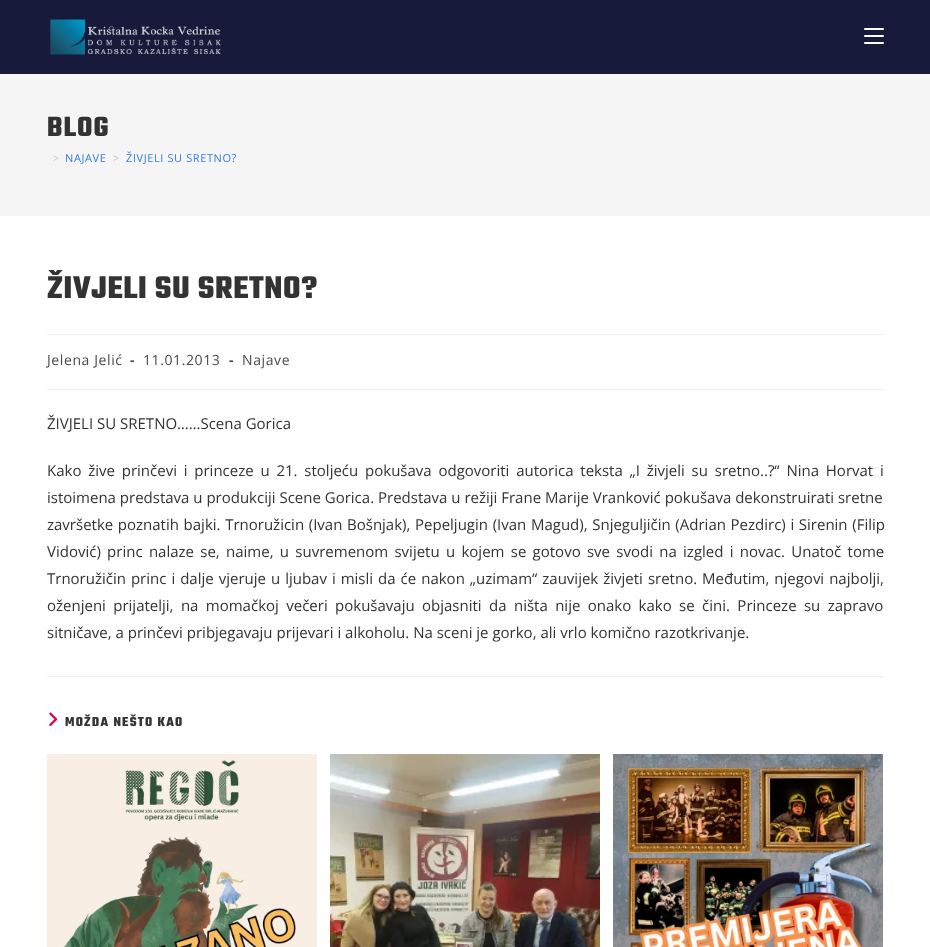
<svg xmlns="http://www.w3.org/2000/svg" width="930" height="947">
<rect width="100%" height="100%" fill="#fff"/>
<rect width="930" height="74" fill="#171a3b"/>
<image x="50" y="19" width="171" height="36" href="media/1.png"/>
<rect x="864" y="42" width="20" height="2" rx="1" fill="#fff"/>
<rect x="864" y="28" width="20" height="2" rx="1" fill="#fff"/>
<rect x="864" y="35" width="20" height="2" rx="1" fill="#fff"/>
<rect y="74" width="930" height="142" fill="#f5f5f5"/>
<text x="47" y="136" style="font-family:Teko;font-size:30px;font-weight:bold;letter-spacing:1px;fill:#333">BLOG</text>
<text x="53" y="162" style="font-family:Open Sans;font-size:11px;letter-spacing:0.6px;fill:#c6c6c6">&gt;</text>
<text x="65" y="162" style="font-family:Open Sans;font-size:11px;letter-spacing:0.6px;fill:#3579e8">NAJAVE</text>
<text x="113" y="162" style="font-family:Open Sans;font-size:11px;letter-spacing:0.6px;fill:#c6c6c6">&gt;</text>
<text x="126" y="162" style="font-family:Open Sans;font-size:11px;letter-spacing:0.6px;fill:#3579e8">ŽIVJELI SU SRETNO?</text>
<rect x="47" y="334" width="837" height="1" fill="#eee"/>
<text x="47" y="298" style="font-family:Teko;font-size:34px;font-weight:bold;letter-spacing:0.6px;fill:#333">ŽIVJELI SU SRETNO?</text>
<rect x="47" y="389" width="837" height="1" fill="#f1f1f1"/>
<text x="47" y="365" style="font-family:Open Sans;font-size:14px;letter-spacing:0.6px;fill:#4a4a4a">Jelena Jelić</text>
<text x="130" y="365" style="font-family:Open Sans;font-size:14px;font-weight:bold;letter-spacing:0.6px;fill:#4a4a4a">-</text>
<text x="143" y="365" style="font-family:Open Sans;font-size:14px;letter-spacing:0.6px;fill:#4a4a4a">11.01.2013</text>
<text x="229" y="365" style="font-family:Open Sans;font-size:14px;font-weight:bold;letter-spacing:0.6px;fill:#4a4a4a">-</text>
<text x="242" y="365" style="font-family:Open Sans;font-size:14px;letter-spacing:0.6px;fill:#4a4a4a">Najave</text>
<text x="47" y="429" style="font-family:Open Sans;font-size:15px;fill:#333">ŽIVJELI SU SRETNO……Scena Gorica</text>
<text x="47" y="476" word-spacing="2.9" style="font-family:Open Sans;font-size:15px;fill:#333">Kako žive prinčevi i princeze u 21. stoljeću pokušava odgovoriti autorica teksta „I živjeli su sretno..?“ Nina Horvat i</text>
<text x="47" y="503" style="font-family:Open Sans;font-size:15px;fill:#333">istoimena predstava u produkciji Scene Gorica. Predstava u režiji Frane Marije Vranković pokušava dekonstruirati sretne</text>
<text x="47" y="530" word-spacing="0.75" style="font-family:Open Sans;font-size:15px;fill:#333">završetke poznatih bajki. Trnoružicin (Ivan Bošnjak), Pepeljugin (Ivan Magud), Snjeguljičin (Adrian Pezdirc) i Sirenin (Filip</text>
<text x="47" y="557" word-spacing="2.4" style="font-family:Open Sans;font-size:15px;fill:#333">Vidović) princ nalaze se, naime, u suvremenom svijetu u kojem se gotovo sve svodi na izgled i novac. Unatoč tome</text>
<text x="47" y="584" word-spacing="1.1" style="font-family:Open Sans;font-size:15px;fill:#333">Trnoružičin princ i dalje vjeruje u ljubav i misli da će nakon „uzimam“ zauvijek živjeti sretno. Međutim, njegovi najbolji,</text>
<text x="47" y="611" word-spacing="3.5" style="font-family:Open Sans;font-size:15px;fill:#333">oženjeni prijatelji, na momačkoj večeri pokušavaju objasniti da ništa nije onako kako se čini. Princeze su zapravo</text>
<text x="47" y="638" style="font-family:Open Sans;font-size:15px;fill:#333">sitničave, a prinčevi pribjegavaju prijevari i alkoholu. Na sceni je gorko, ali vrlo komično razotkrivanje.</text>
<rect x="47" y="676" width="837" height="1" fill="#eee"/>
<image x="49" y="712" width="9" height="14" href="media/2.png"/>
<text x="65" y="726" style="font-family:Teko;font-size:14px;font-weight:bold;letter-spacing:1.25px;fill:#333">MOŽDA NEŠTO KAO</text>
<image x="47" y="754" width="270" height="193" href="media/3.png"/>
<image x="330" y="754" width="270" height="193" href="media/4.png"/>
<image x="613" y="754" width="270" height="193" href="media/5.png"/>
</svg>
